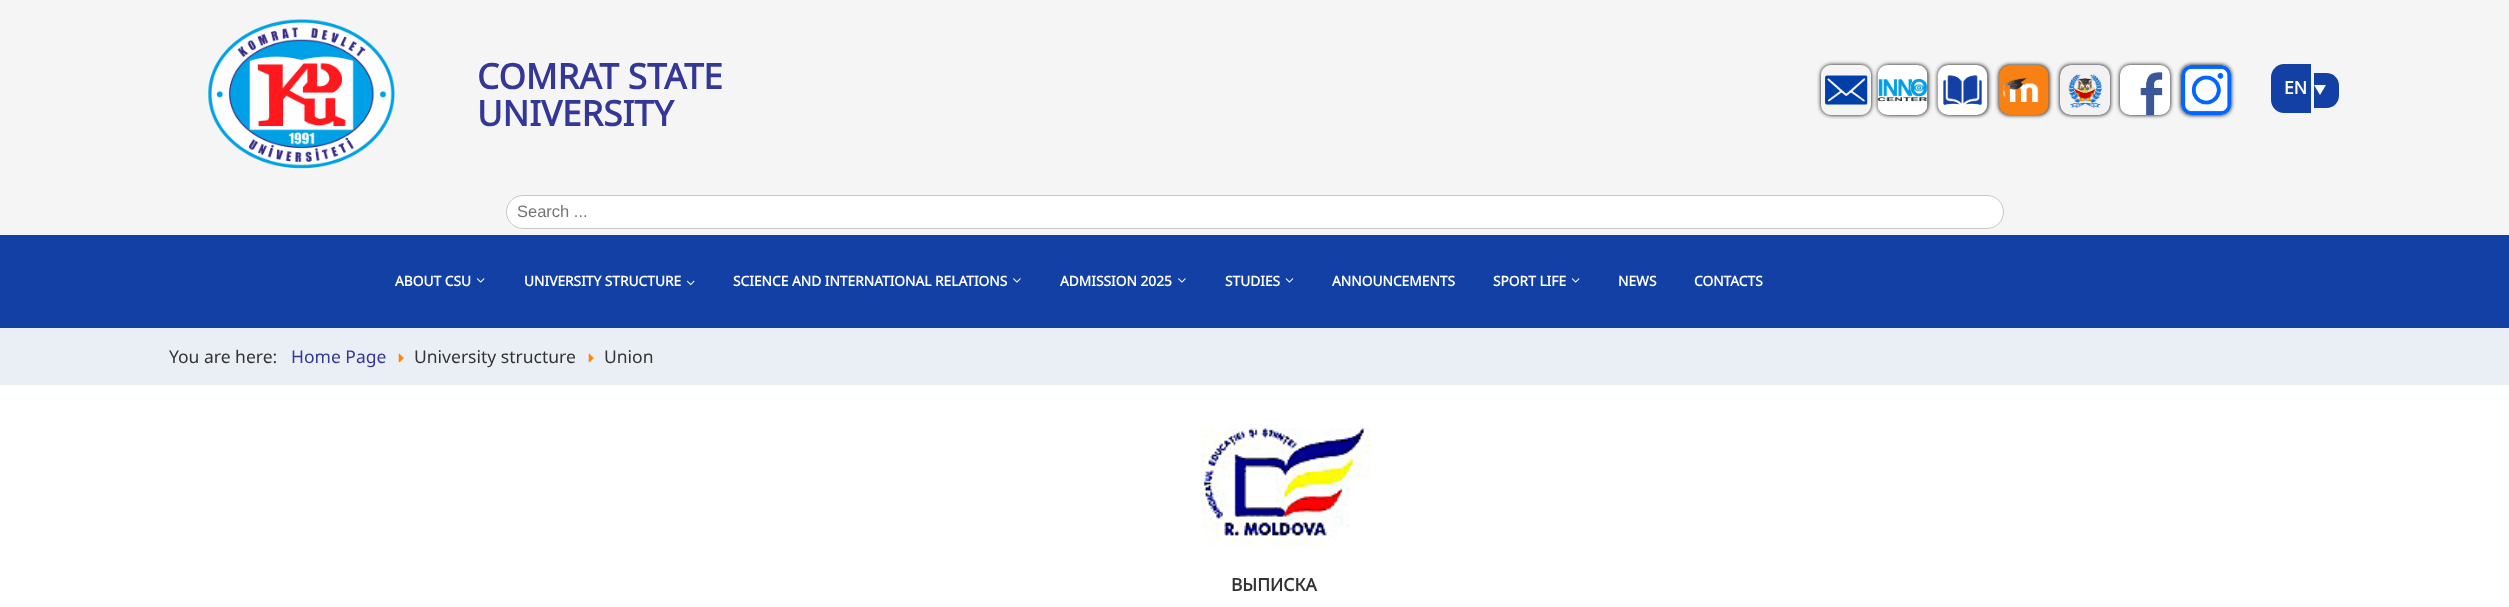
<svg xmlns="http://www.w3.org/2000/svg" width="2509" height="607">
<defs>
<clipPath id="clip1"><path d="M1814 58h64v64h-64zm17 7h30c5.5 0 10 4.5 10 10v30c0 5.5-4.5 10-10 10h-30c-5.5 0-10-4.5-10-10v-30c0-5.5 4.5-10 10-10z" clip-rule="evenodd"/></clipPath>
</defs>
<rect width="100%" height="100%" fill="#fff"/>
<rect width="2509" height="235" fill="#f5f5f5"/>
<image x="207" y="19" width="188" height="150" href="media/1.png"/>
<text x="477" y="89" style="font-family:Noto Sans;font-size:35px;font-weight:bold;fill:#343795">COMRAT STATE</text>
<text x="477" y="126" style="font-family:Noto Sans;font-size:35px;font-weight:bold;fill:#343795">UNIVERSITY</text>
<g clip-path="url(#clip1)">
<rect x="1821" y="65" width="50" height="50" rx="10" fill="#000" filter="blur(2px)"/>
</g>
<rect x="1878" y="65" width="50" height="50" rx="10" fill="#000" filter="blur(2px)"/>
<rect x="1938" y="65" width="50" height="50" rx="10" fill="#000" filter="blur(2px)"/>
<rect x="1999" y="65" width="50" height="50" rx="10" fill="#000" filter="blur(2px)"/>
<rect x="2060" y="65" width="50" height="50" rx="10" fill="#000" filter="blur(2px)"/>
<rect x="2120" y="65" width="50" height="50" rx="10" fill="#000" filter="blur(2px)"/>
<rect x="2181" y="65" width="50" height="50" rx="10" fill="#000" filter="blur(2px)"/>
<image x="1825" y="75" width="43" height="30" href="media/2.png"/>
<image x="1877" y="65" width="51" height="50" href="media/3.png"/>
<image x="1937" y="65" width="51" height="50" href="media/4.png"/>
<image x="1998" y="65" width="51" height="50" href="media/5.png"/>
<image x="2060" y="65" width="50" height="50" href="media/6.png"/>
<image x="2120" y="65" width="50" height="50" href="media/7.png"/>
<image x="2181" y="65" width="51" height="50" href="media/8.png"/>
<path d="M2284 64h27v49h-27c-7 0-13-6-13-13v-23c0-7 6-13 13-13z" fill="#1240a5"/>
<path d="M2314 73h12.5c7 0 12.5 5.5 12.5 12.5v10c0 7-5.5 12.5-12.5 12.5h-12.5z" fill="#1240a5"/>
<text x="2284" y="94" style="font-family:Noto Sans;font-size:17.5px;font-weight:bold;fill:#fff">EN</text>
<path d="M2314 85h12l-6 10z" fill="#fff"/>
<rect x="506.5" y="195.5" width="1497" height="33" rx="16.5" fill="#fff" stroke="#c7c7c7"/>
<text x="517" y="217" style="font-family:Liberation Sans;font-size:16.5px;fill:#757575">Search ...</text>
<rect y="235" width="2509" height="93" fill="#1240a5"/>
<text x="395" y="286" style="font-family:Noto Sans;font-size:13.75px;font-weight:bold;fill:#fff">ABOUT CSU</text>
<image x="476" y="278" width="9" height="5" href="media/9.png"/>
<text x="524" y="286" style="font-family:Noto Sans;font-size:13.75px;font-weight:bold;fill:#fff">UNIVERSITY STRUCTURE</text>
<image x="686" y="280" width="9" height="6" href="media/10.png"/>
<text x="733" y="286" style="font-family:Noto Sans;font-size:13.75px;font-weight:bold;fill:#fff">SCIENCE AND INTERNATIONAL RELATIONS</text>
<image x="1013" y="278" width="8" height="5" href="media/11.png"/>
<text x="1060" y="286" style="font-family:Noto Sans;font-size:13.75px;font-weight:bold;fill:#fff">ADMISSION 2025</text>
<image x="1178" y="278" width="8" height="5" href="media/11.png"/>
<text x="1225" y="286" style="font-family:Noto Sans;font-size:13.75px;font-weight:bold;fill:#fff">STUDIES</text>
<image x="1285" y="278" width="9" height="5" href="media/12.png"/>
<text x="1332" y="286" style="font-family:Noto Sans;font-size:13.75px;font-weight:bold;fill:#fff">ANNOUNCEMENTS</text>
<text x="1493" y="286" style="font-family:Noto Sans;font-size:13.75px;font-weight:bold;fill:#fff">SPORT LIFE</text>
<image x="1571" y="278" width="9" height="5" href="media/9.png"/>
<text x="1618" y="286" style="font-family:Noto Sans;font-size:13.75px;font-weight:bold;fill:#fff">NEWS</text>
<text x="1694" y="286" style="font-family:Noto Sans;font-size:13.75px;font-weight:bold;fill:#fff">CONTACTS</text>
<rect y="328" width="2509" height="57" fill="#e9eff5"/>
<text x="169" y="363" style="font-family:Noto Sans;font-size:17.5px;fill:#333">You are here:</text>
<text x="291" y="363" style="font-family:Noto Sans;font-size:17.5px;fill:#343795">Home Page</text>
<image x="398" y="353" width="6" height="10" href="media/13.png"/>
<text x="414" y="363" style="font-family:Noto Sans;font-size:17.5px;fill:#333">University structure</text>
<image x="588" y="353" width="6" height="10" href="media/13.png"/>
<text x="604" y="363" style="font-family:Noto Sans;font-size:17.5px;fill:#333">Union</text>
<image x="1201" y="428" width="170" height="120" href="media/14.png"/>
<text x="1231" y="591" style="font-family:Noto Sans;font-size:17.5px;font-weight:bold;fill:#333">ВЫПИСКА</text>
</svg>
